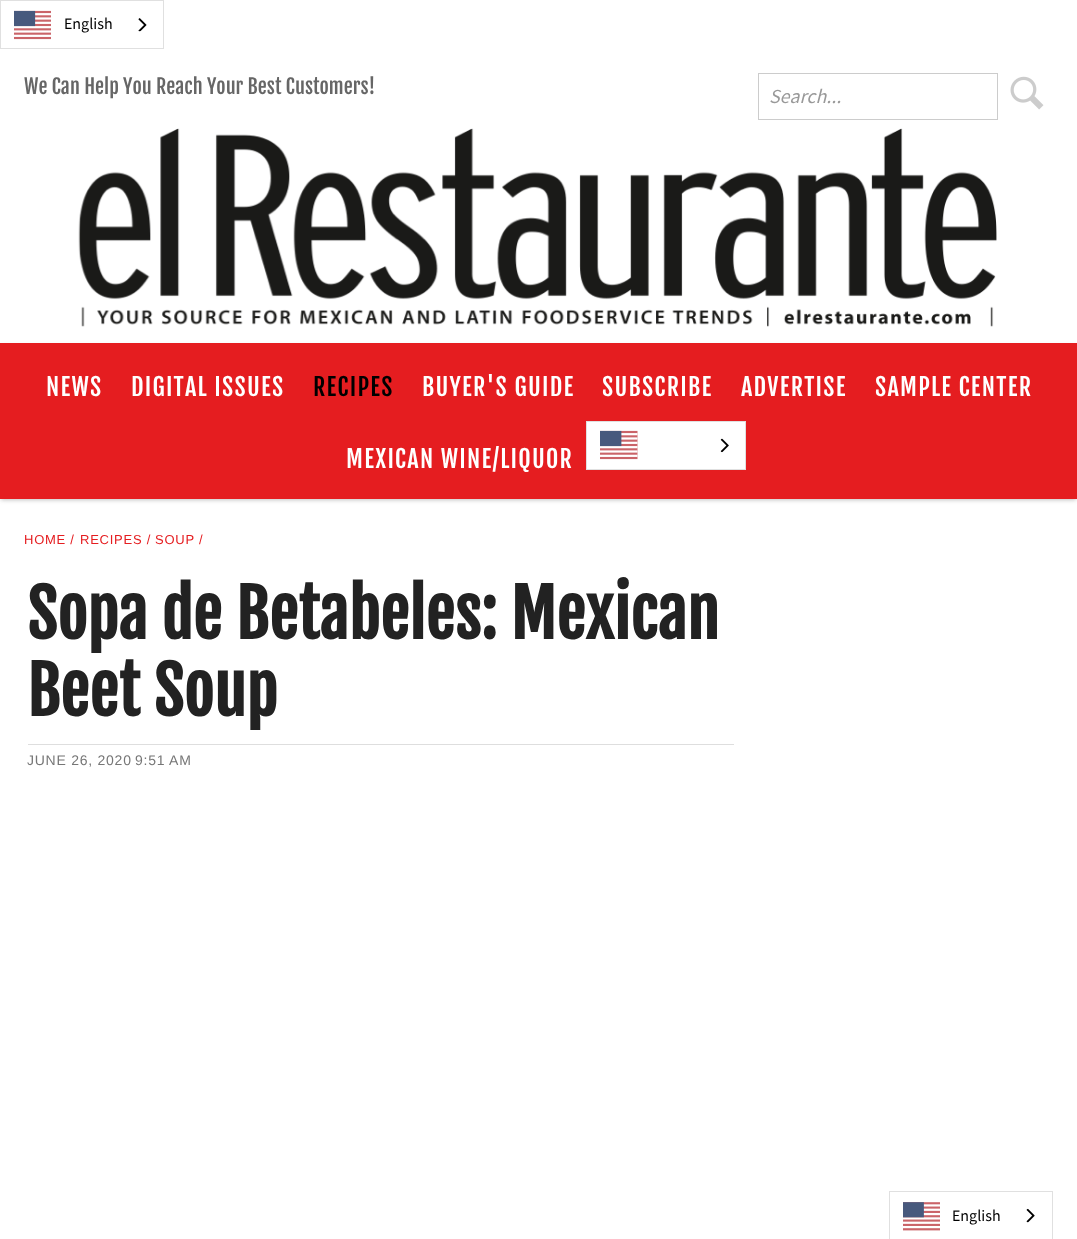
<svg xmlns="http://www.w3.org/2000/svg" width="1077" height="1239">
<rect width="100%" height="100%" fill="#fff"/>
<rect x="0.5" y="0.5" width="163" height="48" fill="none" stroke="#e0e0e0"/>
<image x="14" y="10" width="37" height="30" href="media/1.png"/>
<text x="64" y="29" style="font-family:Source Sans Pro;font-size:16px;fill:#000">English</text>
<image x="138" y="18" width="9" height="14" href="media/2.png"/>
<text x="24" y="94" style="font-family:Fjalla One;font-size:20px;fill:#666">We Can Help You Reach Your Best Customers!</text>
<image x="78" y="128" width="919" height="199" href="media/3.png"/>
<rect x="758.5" y="73.5" width="239" height="46" fill="none" stroke="#ccc"/>
<text x="769" y="103" style="font-family:Source Sans Pro;font-size:20px;font-style:italic;fill:#999">Search...</text>
<image x="1010" y="76" width="34" height="34" href="media/4.png"/>
<rect x="1" y="346" width="1075" height="154" fill="#3333334d" filter="blur(2px)"/>
<rect y="343" width="1077" height="156" fill="#e51d20"/>
<text x="46" y="396" style="font-family:Fjalla One;font-size:24px;letter-spacing:1.25px;fill:#fff">NEWS</text>
<text x="131" y="396" style="font-family:Fjalla One;font-size:24px;letter-spacing:1.25px;fill:#fff">DIGITAL ISSUES</text>
<text x="313" y="396" style="font-family:Fjalla One;font-size:24px;letter-spacing:1.25px;fill:#000">RECIPES</text>
<text x="422" y="396" style="font-family:Fjalla One;font-size:24px;letter-spacing:1.25px;fill:#fff">BUYER'S GUIDE</text>
<text x="602" y="396" style="font-family:Fjalla One;font-size:24px;letter-spacing:1.25px;fill:#fff">SUBSCRIBE</text>
<text x="741" y="396" style="font-family:Fjalla One;font-size:24px;letter-spacing:1.25px;fill:#fff">ADVERTISE</text>
<text x="875" y="396" style="font-family:Fjalla One;font-size:24px;letter-spacing:1.25px;fill:#fff">SAMPLE CENTER</text>
<text x="346" y="468" style="font-family:Fjalla One;font-size:24px;letter-spacing:1.25px;fill:#fff">MEXICAN WINE/LIQUOR</text>
<rect x="586.5" y="421.5" width="159" height="48" fill="#fff" stroke="#e0e0e0"/>
<image x="600" y="430" width="38" height="30" href="media/5.png"/>
<image x="720" y="438" width="9" height="15" href="media/6.png"/>
<text x="24" y="544" style="font-family:Liberation Sans;font-size:13px;letter-spacing:0.75px;fill:#e51d20">HOME /</text>
<text x="80" y="544" style="font-family:Liberation Sans;font-size:13px;letter-spacing:0.75px;fill:#e51d20">RECIPES /</text>
<text x="155" y="544" style="font-family:Liberation Sans;font-size:13px;letter-spacing:0.75px;fill:#e51d20">SOUP /</text>
<text x="27" y="639" style="font-family:Fjalla One;font-size:64.75px;font-weight:bold;fill:#222">Sopa de Betabeles: Mexican</text>
<text x="27" y="716" style="font-family:Fjalla One;font-size:64.75px;font-weight:bold;fill:#222">Beet Soup</text>
<rect x="28" y="744" width="706" height="1" fill="#dedede"/>
<text x="27" y="765" style="font-family:Liberation Sans;font-size:14px;letter-spacing:0.75px;fill:#767676">JUNE 26, 2020</text>
<text x="135" y="765" style="font-family:Liberation Sans;font-size:14px;letter-spacing:0.75px;fill:#767676">9:51 AM</text>
<rect x="889.5" y="1191.5" width="163" height="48" fill="none" stroke="#e0e0e0"/>
<image x="903" y="1202" width="37" height="29" href="media/7.png"/>
<text x="952" y="1221" style="font-family:Source Sans Pro;font-size:16px;fill:#000">English</text>
<image x="1026" y="1208" width="9" height="15" href="media/8.png"/>
</svg>
